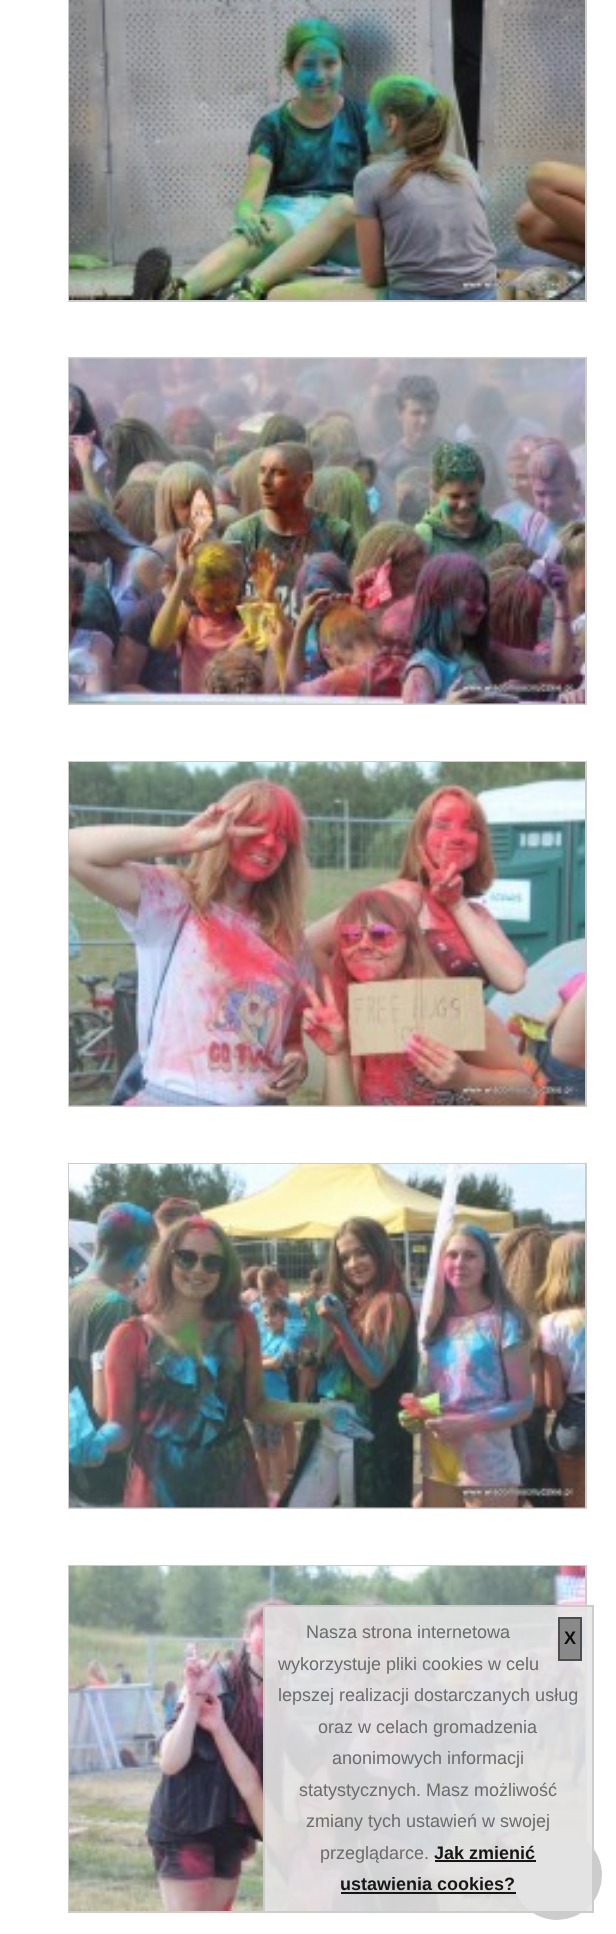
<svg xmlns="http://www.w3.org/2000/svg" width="616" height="1934">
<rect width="100%" height="100%" fill="#fff"/>
<rect x="69" y="-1" width="517" height="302" fill="none" stroke="#ccc" stroke-width="2"/>
<image x="69" y="0" width="516" height="300" href="media/1.png"/>
<rect x="69" y="358" width="517" height="346" fill="none" stroke="#ccc" stroke-width="2"/>
<image x="69" y="358" width="516" height="346" href="media/2.png"/>
<rect x="69" y="762" width="517" height="344" fill="none" stroke="#ccc" stroke-width="2"/>
<image x="69" y="762" width="516" height="344" href="media/3.png"/>
<rect x="69" y="1164" width="517" height="344" fill="none" stroke="#ccc" stroke-width="2"/>
<image x="69" y="1164" width="516" height="344" href="media/4.png"/>
<rect x="69" y="1566" width="517" height="346" fill="none" stroke="#ccc" stroke-width="2"/>
<image x="69" y="1566" width="516" height="345" href="media/5.png"/>
<circle cx="557" cy="1875" r="45" fill="#ccc"/>
<rect x="263" y="1605" width="331" height="308" fill="#e5e5e5e6"/>
<rect x="264" y="1606" width="329" height="306" fill="none" stroke="#c9c9c9e6" stroke-width="2"/>
<text x="306" y="1638" style="font-family:Liberation Sans;font-size:18px;fill:#6c6c6c">Nasza strona internetowa</text>
<text x="278" y="1670" style="font-family:Liberation Sans;font-size:18px;fill:#6c6c6c">wykorzystuje pliki cookies w celu</text>
<text x="278" y="1701" style="font-family:Liberation Sans;font-size:18px;fill:#6c6c6c">lepszej realizacji dostarczanych usług</text>
<text x="318" y="1733" style="font-family:Liberation Sans;font-size:18px;fill:#6c6c6c">oraz w celach gromadzenia</text>
<text x="332" y="1764" style="font-family:Liberation Sans;font-size:18px;fill:#6c6c6c">anonimowych informacji</text>
<text x="299" y="1796" style="font-family:Liberation Sans;font-size:18px;fill:#6c6c6c">statystycznych. Masz możliwość</text>
<text x="306" y="1827" style="font-family:Liberation Sans;font-size:18px;fill:#6c6c6c">zmiany tych ustawień w swojej</text>
<text x="320" y="1859" style="font-family:Liberation Sans;font-size:18px;fill:#6c6c6c">przeglądarce.</text>
<text x="434" y="1859" style="font-family:Liberation Sans;font-size:18px;font-weight:bold;fill:#161616">Jak zmienić</text>
<rect x="435" y="1860" width="101" height="2" fill="#000000e6"/>
<text x="340" y="1890" style="font-family:Liberation Sans;font-size:18px;font-weight:bold;fill:#161616">ustawienia cookies?</text>
<rect x="341" y="1892" width="175" height="2" fill="#000000e6"/>
<rect x="559" y="1618" width="22" height="42" fill="#808080e6" stroke="#4d4d4d" stroke-width="2"/>
<text x="564" y="1644" style="font-family:Liberation Sans;font-size:18px;font-weight:bold;fill:#0e0e0e">X</text>
</svg>
